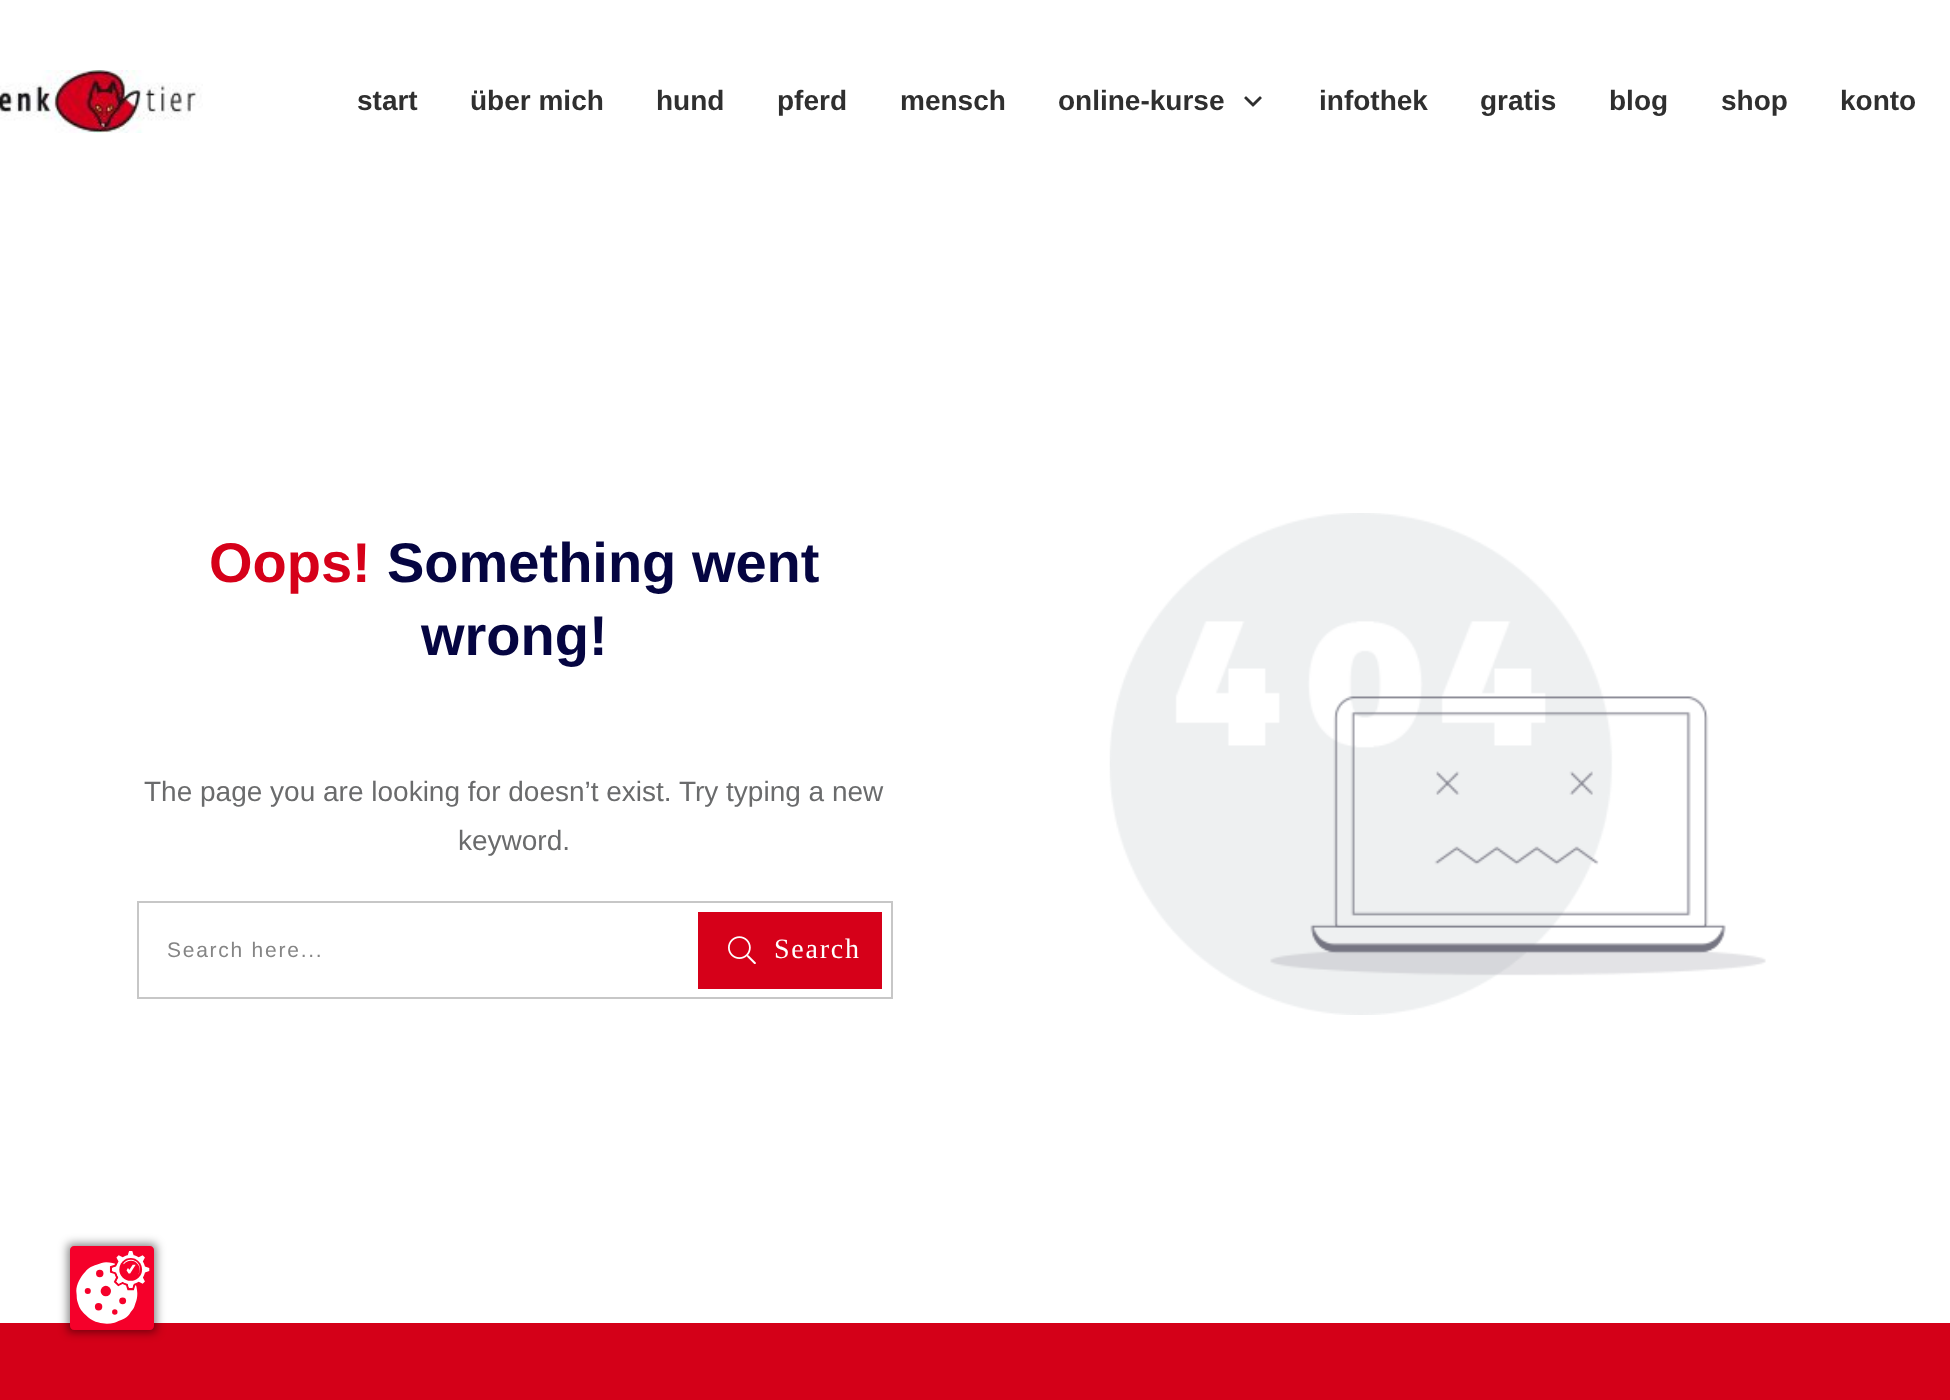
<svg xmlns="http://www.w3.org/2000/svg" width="1950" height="1400">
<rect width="100%" height="100%" fill="#fff"/>
<image x="0" y="70" width="203" height="63" href="media/1.png"/>
<text x="357" y="110" style="font-family:Liberation Sans;font-size:28px;font-weight:bold;fill:#2f2f2f">start</text>
<text x="470" y="110" style="font-family:Liberation Sans;font-size:28px;font-weight:bold;fill:#2f2f2f">über mich</text>
<text x="656" y="110" style="font-family:Liberation Sans;font-size:28px;font-weight:bold;fill:#2f2f2f">hund</text>
<text x="777" y="110" style="font-family:Liberation Sans;font-size:28px;font-weight:bold;fill:#2f2f2f">pferd</text>
<text x="900" y="110" style="font-family:Liberation Sans;font-size:28px;font-weight:bold;fill:#2f2f2f">mensch</text>
<text x="1058" y="110" style="font-family:Liberation Sans;font-size:28px;font-weight:bold;fill:#2f2f2f">online-kurse</text>
<image x="1244" y="96" width="18" height="11" href="media/2.png"/>
<text x="1319" y="110" style="font-family:Liberation Sans;font-size:28px;font-weight:bold;fill:#2f2f2f">infothek</text>
<text x="1480" y="110" style="font-family:Liberation Sans;font-size:28px;font-weight:bold;fill:#2f2f2f">gratis</text>
<text x="1609" y="110" style="font-family:Liberation Sans;font-size:28px;font-weight:bold;fill:#2f2f2f">blog</text>
<text x="1721" y="110" style="font-family:Liberation Sans;font-size:28px;font-weight:bold;fill:#2f2f2f">shop</text>
<text x="1840" y="110" style="font-family:Liberation Sans;font-size:28px;font-weight:bold;fill:#2f2f2f">konto</text>
<text x="209" y="582" style="font-family:Liberation Sans;font-size:56px;font-weight:bold;fill:#d60019">Oops!</text>
<text x="387" y="582" style="font-family:Liberation Sans;font-size:56px;font-weight:bold;fill:#050541">Something went</text>
<text x="421" y="655" style="font-family:Liberation Sans;font-size:56px;font-weight:bold;fill:#050541">wrong!</text>
<text x="144" y="801" style="font-family:Liberation Sans;font-size:28px;fill:#6a6b6c">The page you are looking for doesn’t exist. Try typing a new</text>
<text x="458" y="850" style="font-family:Liberation Sans;font-size:28px;fill:#6a6b6c">keyword.</text>
<rect x="138" y="902" width="754" height="96" fill="none" stroke="#c7c7c7" stroke-width="2"/>
<text x="167" y="957" style="font-family:Liberation Sans;font-size:21px;letter-spacing:1.75px;fill:#858585">Search here...</text>
<rect x="698" y="912" width="184" height="77" fill="#d60019"/>
<image x="728" y="936" width="28" height="28" href="media/3.png"/>
<text x="774" y="958" style="font-family:Liberation Serif;font-size:28px;letter-spacing:1.75px;fill:#fff">Search</text>
<image x="1109" y="513" width="657" height="502" href="media/4.png"/>
<rect y="1323" width="1950" height="77" fill="#d40018"/>
<rect x="68" y="1244" width="88" height="88" fill="#00000080" filter="blur(5px)"/>
<image x="70" y="1246" width="84" height="84" href="media/5.png"/>
</svg>
